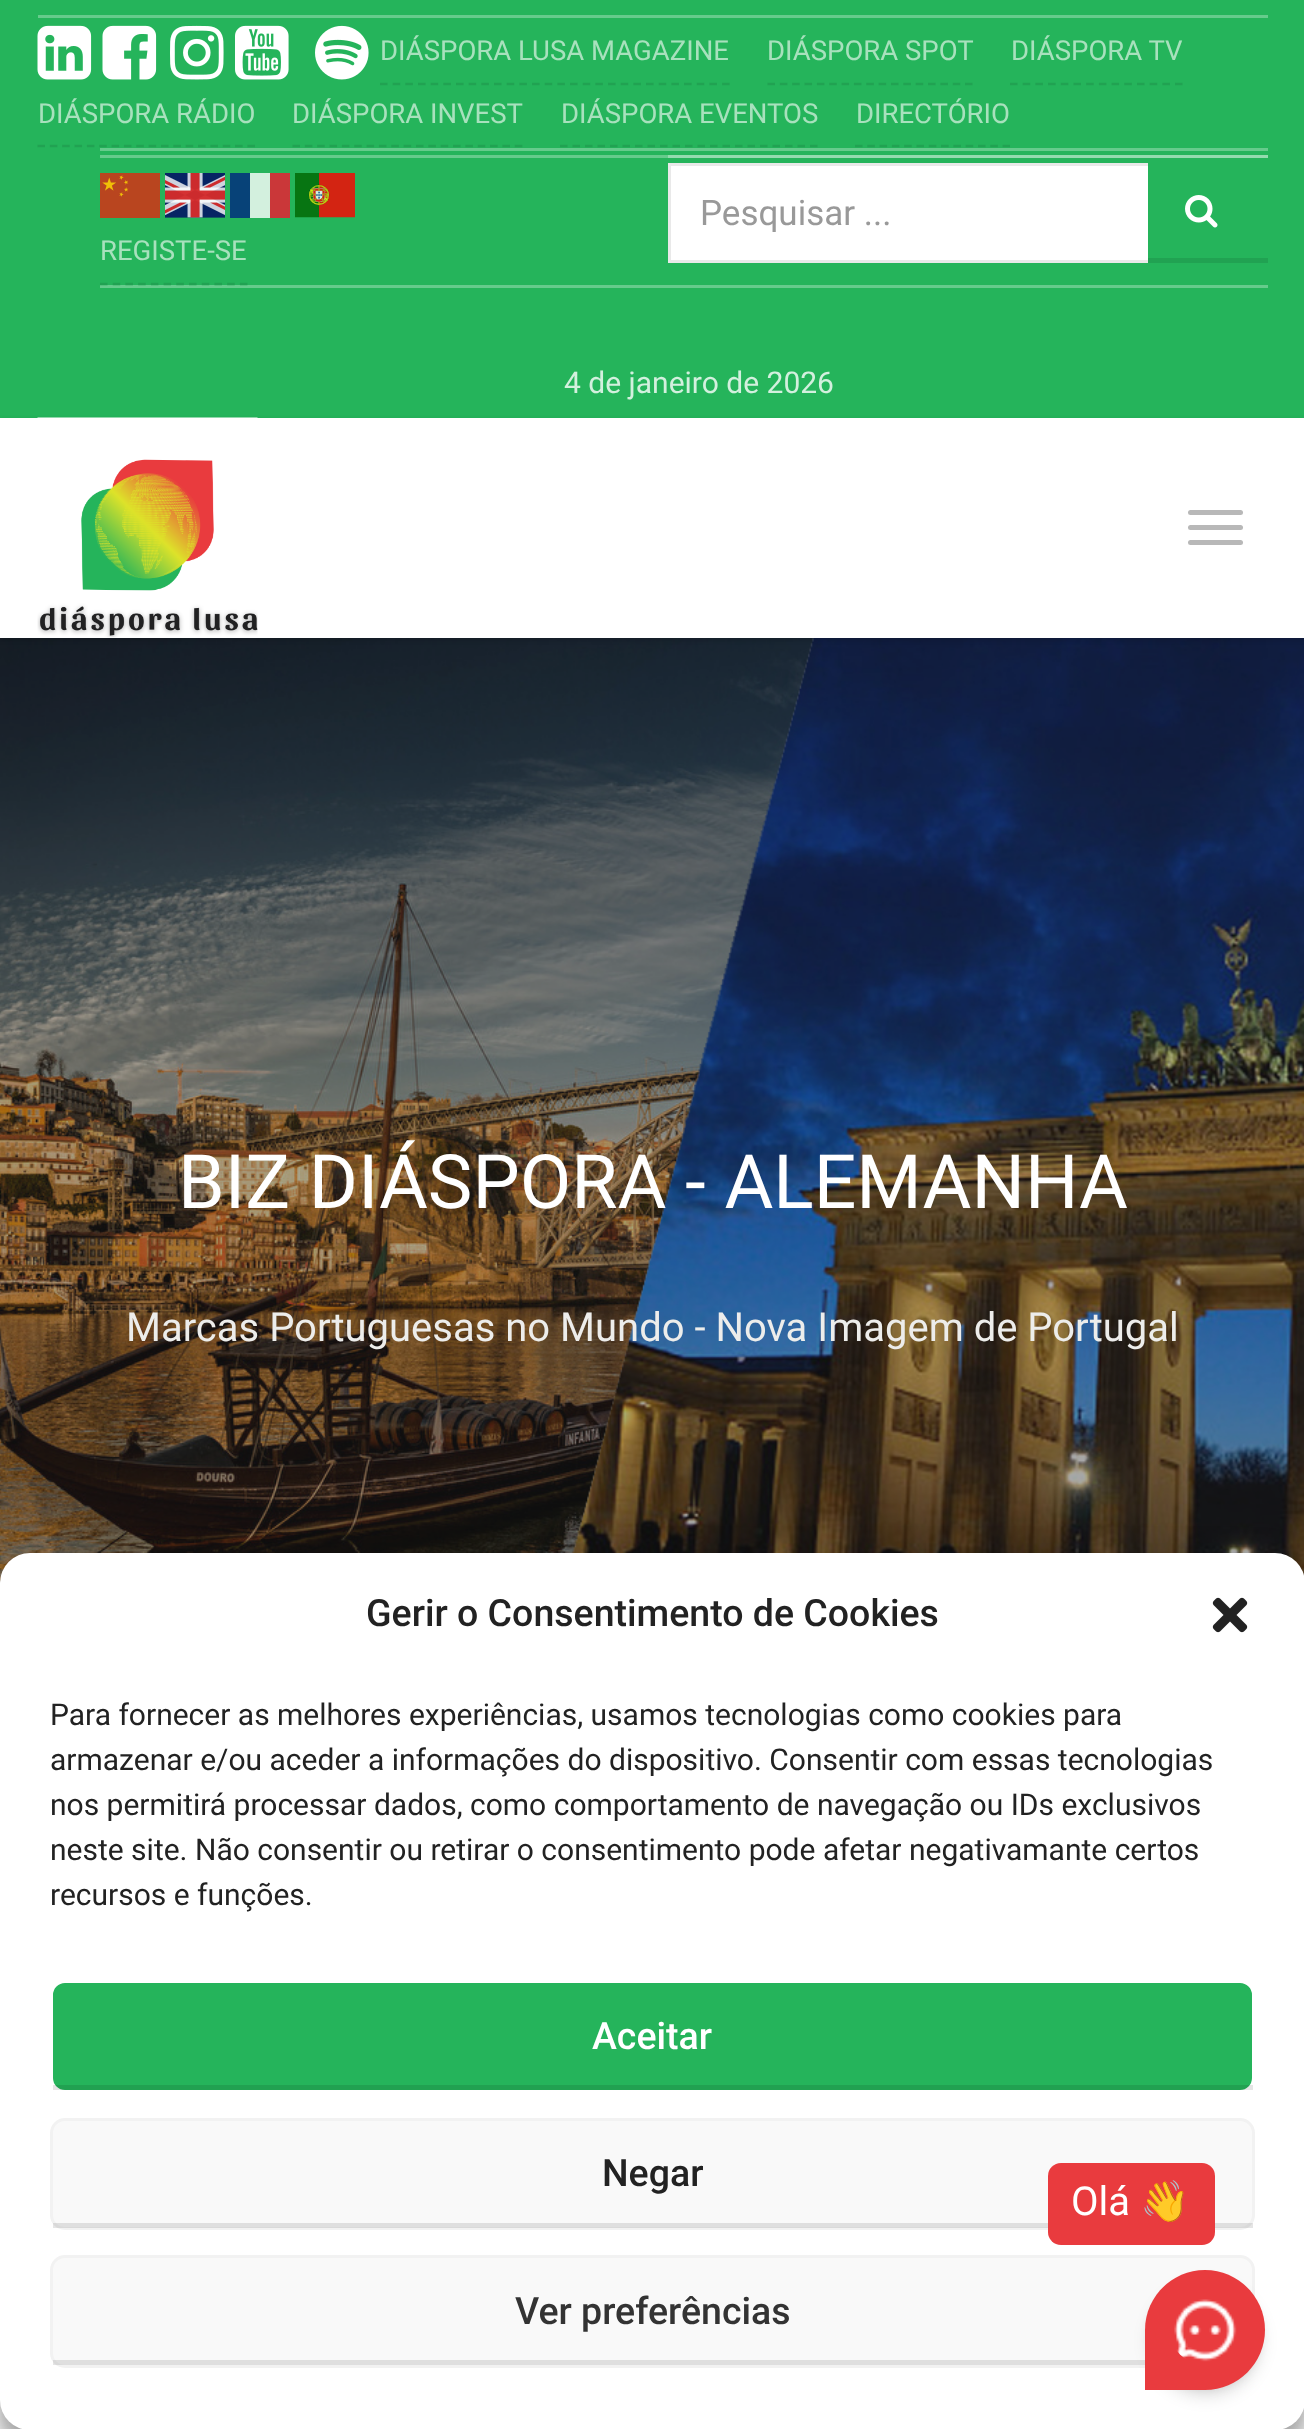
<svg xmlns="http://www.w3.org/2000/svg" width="1304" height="2429">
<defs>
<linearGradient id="g1" gradientUnits="userSpaceOnUse" x1="652" y1="1888" x2="653" y2="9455"><stop offset="0" stop-color="#f2f2f2"/><stop offset="0.02" stop-color="#fafafa"/></linearGradient>
</defs>
<rect width="100%" height="100%" fill="#fff"/>
<rect width="1304" height="418" fill="#25b45b"/>
<image x="37" y="25" width="55" height="55" href="media/1.png"/>
<image x="102" y="25" width="55" height="55" href="media/2.png"/>
<image x="170" y="25" width="54" height="55" href="media/3.png"/>
<image x="235" y="25" width="54" height="55" href="media/4.png"/>
<image x="315" y="25" width="54" height="55" href="media/5.png"/>
<rect x="38" y="15" width="1230" height="3" fill="#66cb8c"/>
<path d="M380 84h350" fill="none" stroke="#21a252" stroke-width="2.5" stroke-dasharray="7.5 5.17"/>
<text x="380" y="60" style="font-family:Roboto;font-size:27.5px;fill:#a8e1bd">DIÁSPORA LUSA MAGAZINE</text>
<path d="M767.5 84h205" fill="none" stroke="#21a252" stroke-width="2.5" stroke-dasharray="7.5 4.85"/>
<text x="767" y="60" style="font-family:Roboto;font-size:27.5px;fill:#a8e1bd">DIÁSPORA SPOT</text>
<path d="M1010 84h172.5" fill="none" stroke="#21a252" stroke-width="2.5" stroke-dasharray="7.5 5.2"/>
<text x="1011" y="60" style="font-family:Roboto;font-size:27.5px;fill:#a8e1bd">DIÁSPORA TV</text>
<path d="M37.5 146h217.5" fill="none" stroke="#21a252" stroke-width="2.5" stroke-dasharray="7.5 4.85"/>
<text x="38" y="123" style="font-family:Roboto;font-size:27.5px;fill:#a8e1bd">DIÁSPORA RÁDIO</text>
<path d="M292.5 146h230" fill="none" stroke="#21a252" stroke-width="2.5" stroke-dasharray="7.5 4.85"/>
<text x="292" y="123" style="font-family:Roboto;font-size:27.5px;fill:#a8e1bd">DIÁSPORA INVEST</text>
<path d="M560 146h257.5" fill="none" stroke="#21a252" stroke-width="2.5" stroke-dasharray="7.5 5"/>
<text x="561" y="123" style="font-family:Roboto;font-size:27.5px;fill:#a8e1bd">DIÁSPORA EVENTOS</text>
<path d="M855 146h155" fill="none" stroke="#21a252" stroke-width="2.5" stroke-dasharray="7.5 4.8"/>
<text x="856" y="123" style="font-family:Roboto;font-size:27.5px;fill:#a8e1bd">DIRECTÓRIO</text>
<rect x="100" y="148" width="1168" height="3" fill="#66cb8c"/>
<rect x="668" y="155" width="600" height="3" fill="#94dbaf"/>
<rect x="671" y="166" width="477" height="94" fill="#fff"/>
<rect x="668" y="163" width="482" height="3" fill="#e9e9e9"/>
<rect x="668" y="260" width="482" height="3" fill="#e9e9e9"/>
<rect x="668" y="163" width="3" height="100" fill="#e9e9e9"/>
<text x="700" y="225" style="font-family:Roboto;font-size:35px;fill:#999">Pesquisar ...</text>
<rect x="1148" y="163" width="2" height="3" fill="#25b45b"/>
<image x="1185" y="195" width="33" height="33" href="media/6.png"/>
<rect x="1148" y="258" width="120" height="5" fill="#21a252"/>
<rect x="100" y="155" width="568" height="3" fill="#66cb8c"/>
<image x="100" y="173" width="60" height="45" href="media/7.png"/>
<image x="165" y="173" width="60" height="45" href="media/8.png"/>
<rect x="230" y="173" width="20" height="45" fill="#074278"/>
<rect x="250" y="173" width="20" height="45" fill="#d3f0de"/>
<rect x="270" y="173" width="20" height="45" fill="#ca3739"/>
<image x="295" y="173" width="60" height="45" href="media/9.png"/>
<rect x="100" y="285" width="1168" height="3" fill="#66cb8c"/>
<path d="M100 284h147.5" fill="none" stroke="#21a252" stroke-width="2.5" stroke-dasharray="7.5 5.22"/>
<text x="100" y="260" style="font-family:Roboto;font-size:27.5px;fill:#a8e1bd">REGISTE-SE</text>
<text x="564" y="393" style="font-family:Roboto;font-size:30px;fill:#d3f0de">4 de janeiro de 2026</text>
<image x="0" y="638" width="1304" height="945" href="media/11.png"/>
<rect y="420" width="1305" height="220" fill="#00000026" filter="blur(2.5px)"/>
<rect y="418" width="1304" height="220" fill="#fff"/>
<image x="37" y="417" width="221" height="221" href="media/10.png"/>
<rect x="1188" y="510" width="55" height="5" rx="2.5" fill="#b8b8b8"/>
<rect x="1188" y="525" width="55" height="5" rx="2.5" fill="#b8b8b8"/>
<rect x="1188" y="540" width="55" height="5" rx="2.5" fill="#b8b8b8"/>
<text x="178" y="1208" style="font-family:Roboto;font-size:75px;fill:#fff">BIZ DIÁSPORA - ALEMANHA</text>
<text x="126" y="1341" style="font-family:Roboto;font-size:40px;fill:#ededeb">Marcas Portuguesas no Mundo - Nova Imagem de Portugal</text>
<rect y="2400" width="1304" height="29" fill="url(#g1)"/>
<rect y="1568" width="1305" height="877" rx="30" fill="#0000003b" filter="blur(7.5px)"/>
<rect y="1578" width="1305" height="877" rx="30" fill="#00000030" filter="blur(25px)"/>
<rect y="1553" width="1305" height="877" rx="30" fill="#fff"/>
<text x="366" y="1626" style="font-family:Roboto;font-size:37.5px;font-weight:500;fill:#222">Gerir o Consentimento de Cookies</text>
<image x="1212" y="1597" width="36" height="36" href="media/12.png"/>
<text x="50" y="1725" style="font-family:Roboto;font-size:30px;fill:#222">Para fornecer as melhores experiências, usamos tecnologias como cookies para</text>
<text x="50" y="1770" style="font-family:Roboto;font-size:30px;fill:#222">armazenar e/ou aceder a informações do dispositivo. Consentir com essas tecnologias</text>
<text x="50" y="1815" style="font-family:Roboto;font-size:30px;fill:#222">nos permitirá processar dados, como comportamento de navegação ou IDs exclusivos</text>
<text x="50" y="1860" style="font-family:Roboto;font-size:30px;fill:#222">neste site. Não consentir ou retirar o consentimento pode afetar negativamante certos</text>
<text x="50" y="1905" style="font-family:Roboto;font-size:30px;fill:#222">recursos e funções.</text>
<rect x="51.5" y="1981.5" width="1202" height="110" rx="13.5" fill="#25b45b" stroke="#fff" stroke-width="3"/>
<text x="592" y="2049" style="font-family:Roboto;font-size:37.5px;font-weight:500;fill:#fff">Aceitar</text>
<rect x="53" y="2085" width="1200" height="5" fill="#0000001a"/>
<rect x="51.5" y="2119.5" width="1202" height="109" rx="13.5" fill="#f9f9f9" stroke="#f2f2f2" stroke-width="3"/>
<text x="602" y="2186" style="font-family:Roboto;font-size:37.5px;font-weight:500;fill:#222">Negar</text>
<rect x="53" y="2223" width="1200" height="5" fill="#0000001a"/>
<rect x="51.5" y="2256.5" width="1202" height="110" rx="13.5" fill="#f9f9f9" stroke="#f2f2f2" stroke-width="3"/>
<text x="515" y="2324" style="font-family:Roboto;font-size:37.5px;font-weight:500;fill:#333">Ver preferências</text>
<rect x="53" y="2360" width="1092" height="5" fill="#0000001a"/>
<rect x="1048" y="2163" width="167" height="82" rx="13" fill="#e93b3e"/>
<text x="1071" y="2215" style="font-family:Roboto;font-size:40px;fill:#fff">Olá</text>
<text x="1140" y="2215" style="font-family:Noto Color Emoji;font-size:40px;fill:#fff">👋</text>
<rect x="1150" y="2280" width="110" height="110" rx="55" fill="#0000001a" filter="blur(5px)"/>
<rect x="1148" y="2283" width="115" height="115" rx="57.5" fill="#0000001a" filter="blur(7.5px)"/>
<path d="M1205 2270c33 0 60 27 60 60c0 33-27 60-60 60h-60v-60c0-33 27-60 60-60z" fill="#e93b3e"/>
<image x="1174" y="2299" width="63" height="63" href="media/13.png"/>
</svg>
